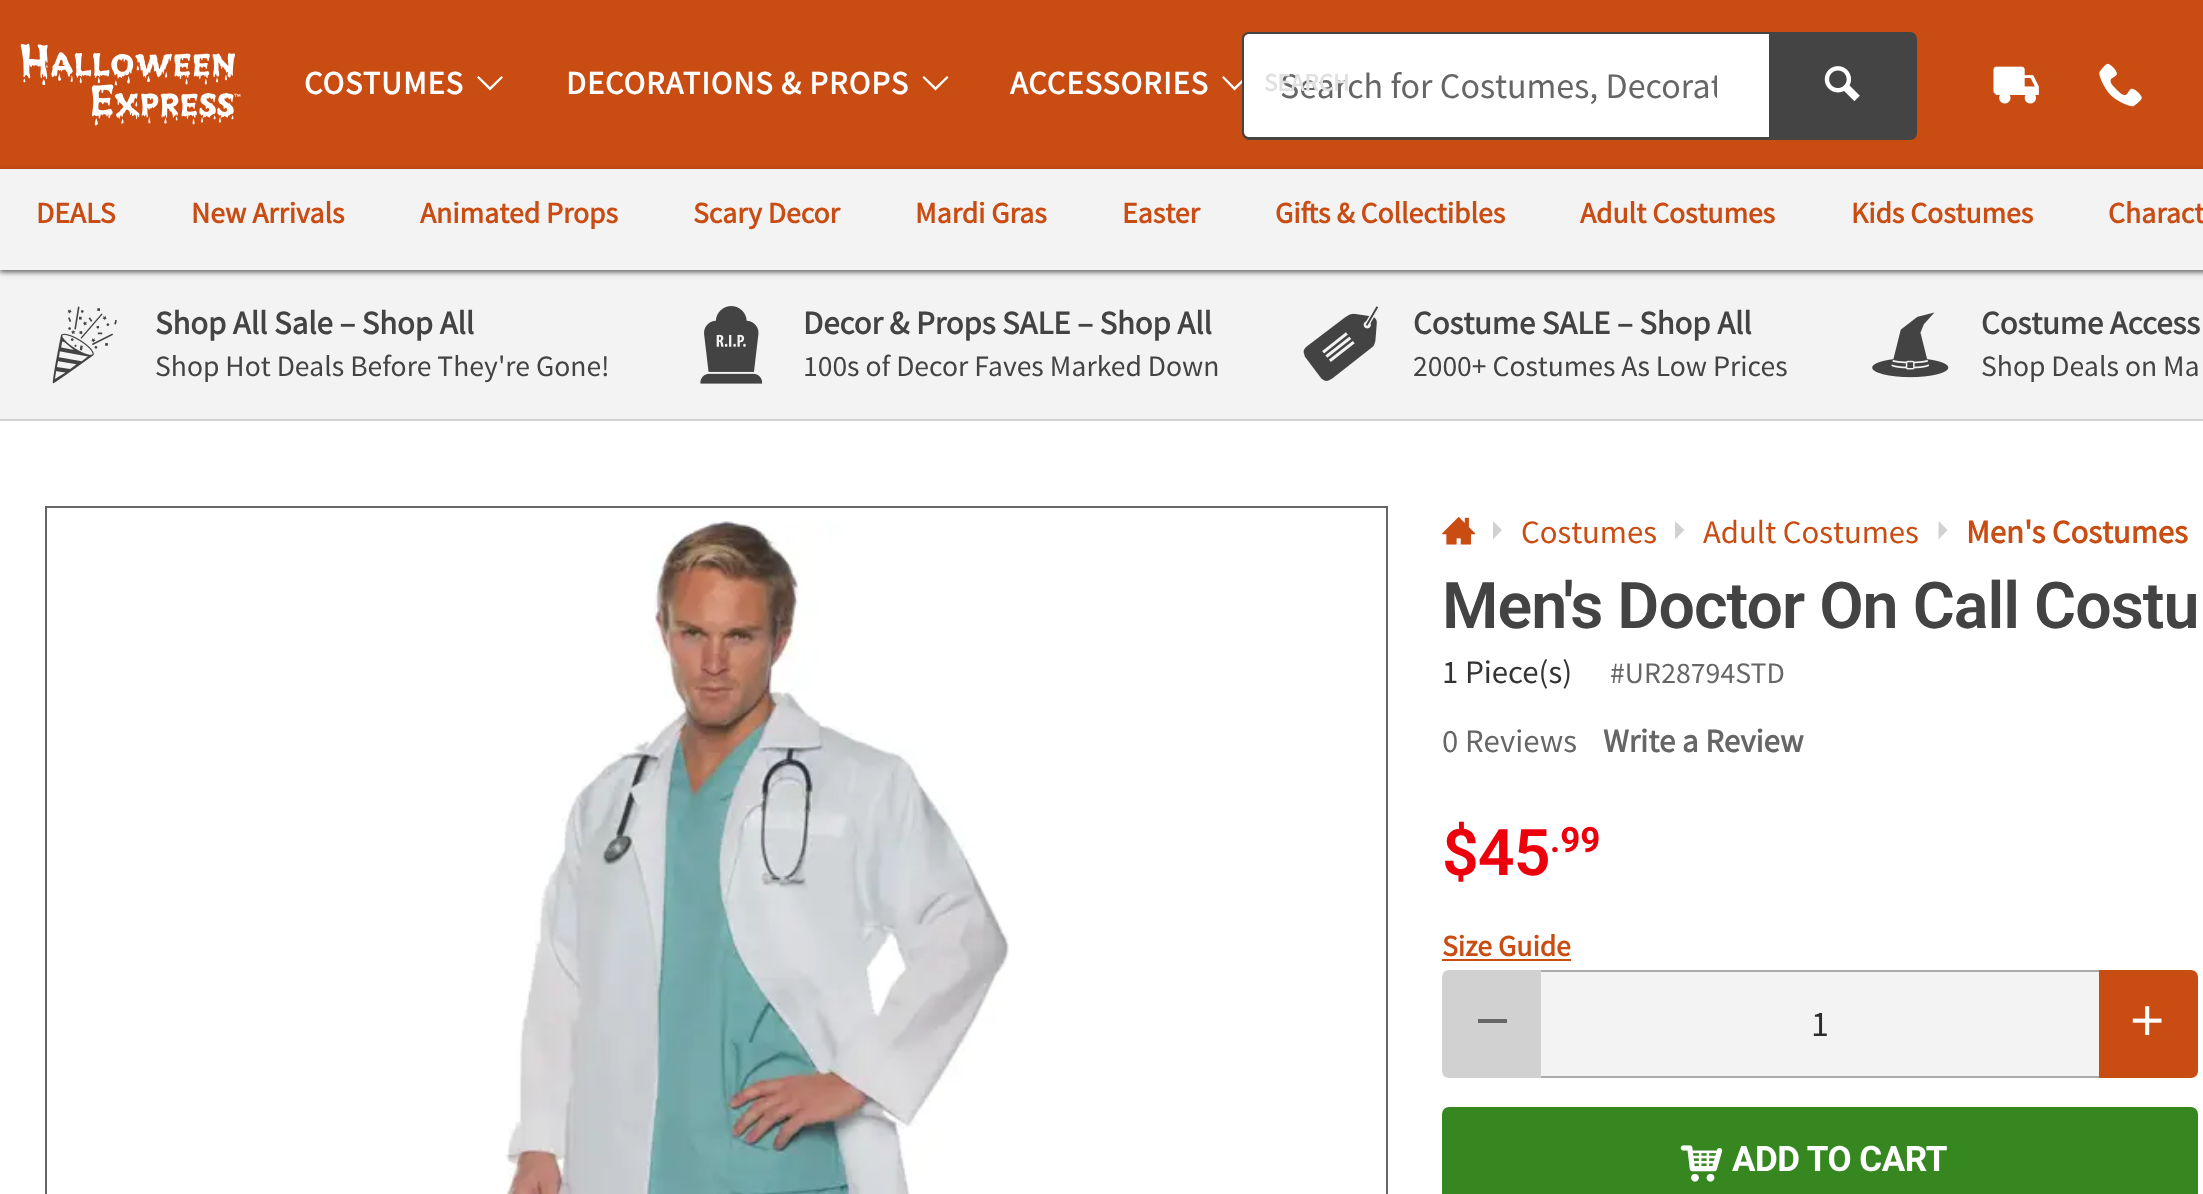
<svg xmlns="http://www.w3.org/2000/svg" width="2203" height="1194">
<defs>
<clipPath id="clip1"><rect x="1280" y="63" width="437" height="45"/></clipPath>
</defs>
<rect width="100%" height="100%" fill="#fff"/>
<rect y="270" width="2203" height="149" fill="#f3f3f3"/>
<rect y="2" width="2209" height="270" fill="#0000003d" filter="blur(2px)"/>
<rect y="2" width="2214" height="270" fill="#0000001f" filter="blur(3.5px)"/>
<rect width="2203" height="169" fill="#c94c13"/>
<image x="20" y="43" width="221" height="83" href="media/1.png"/>
<text x="304" y="94" style="font-family:Source Sans Pro;font-size:32.4px;font-weight:bold;letter-spacing:1px;fill:#fff">COSTUMES</text>
<path d="M503 77.5l-1.5-1.5l-11.5 11l-11.5-11l-1.5 1.5l13 13z" fill="#fff"/>
<text x="566" y="94" style="font-family:Source Sans Pro;font-size:32.4px;font-weight:bold;letter-spacing:1px;fill:#fff">DECORATIONS &amp; PROPS</text>
<path d="M948.5 77.5l-1.5-1.5l-11.5 11l-11.5-11l-1.5 1.5l13 13z" fill="#fff"/>
<text x="1010" y="94" style="font-family:Source Sans Pro;font-size:32.4px;font-weight:bold;letter-spacing:1px;fill:#fff">ACCESSORIES</text>
<path d="M1247.5 77.5l-1.5-1.5l-11.5 11l-11-11l-1.5 1.5l12.5 13z" fill="#fff"/>
<path d="M1249 34h522v103h-522c-3 0-5-2-5-5v-93c0-3 2-5 5-5z" fill="#fff"/>
<path d="M1249 32h522v108h-522c-4 0-7-4-7-7v-95c0-3 3-6 7-6zm0 2h522v103h-522c-3 0-5-2-5-4v-95c0-2 2-4 5-4z" fill="#444" fill-rule="evenodd"/>
<g clip-path="url(#clip1)">
<text x="1280" y="98" style="font-family:Source Sans Pro;font-size:36px;fill:#666">Search for Costumes, Decorat</text>
</g>
<text x="1264" y="91" style="font-family:Source Sans Pro;font-size:25px;font-weight:bold;fill:#e0e0e0">SEARCH</text>
<path d="M1770 33h140c3.5 0 6 2.5 6 6v94c0 3.5-2.5 6-6 6h-140z" fill="#444" stroke="#444" stroke-width="2"/>
<image x="1824" y="66" width="36" height="36" href="media/2.png"/>
<image x="1993" y="66" width="46" height="38" href="media/3.png"/>
<image x="2099" y="63" width="43" height="44" href="media/4.png"/>
<rect y="171" width="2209" height="101" fill="#0000003d" filter="blur(2px)"/>
<rect y="171" width="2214" height="101" fill="#0000001f" filter="blur(3.5px)"/>
<rect y="169" width="2203" height="101" fill="#f3f3f3"/>
<text x="36" y="223" style="font-family:Source Sans Pro;font-size:29.6px;font-weight:bold;fill:#c94c13">DEALS</text>
<text x="191" y="223" style="font-family:Source Sans Pro;font-size:29.6px;font-weight:bold;fill:#c94c13">New Arrivals</text>
<text x="420" y="223" style="font-family:Source Sans Pro;font-size:29.6px;font-weight:bold;fill:#c94c13">Animated Props</text>
<text x="693" y="223" style="font-family:Source Sans Pro;font-size:29.6px;font-weight:bold;fill:#c94c13">Scary Decor</text>
<text x="915" y="223" style="font-family:Source Sans Pro;font-size:29.6px;font-weight:bold;fill:#c94c13">Mardi Gras</text>
<text x="1122" y="223" style="font-family:Source Sans Pro;font-size:29.6px;font-weight:bold;fill:#c94c13">Easter</text>
<text x="1275" y="223" style="font-family:Source Sans Pro;font-size:29.6px;font-weight:bold;fill:#c94c13">Gifts &amp; Collectibles</text>
<text x="1580" y="223" style="font-family:Source Sans Pro;font-size:29.6px;font-weight:bold;fill:#c94c13">Adult Costumes</text>
<text x="1851" y="223" style="font-family:Source Sans Pro;font-size:29.6px;font-weight:bold;fill:#c94c13">Kids Costumes</text>
<text x="2108" y="223" style="font-family:Source Sans Pro;font-size:29.6px;font-weight:bold;fill:#c94c13">Charact</text>
<rect y="419" width="2203" height="2" fill="#d1d1d1"/>
<image x="52" y="306" width="65" height="78" href="media/5.png"/>
<text x="155" y="334" style="font-family:Source Sans Pro;font-size:32.75px;font-weight:bold;fill:#434343">Shop All Sale – Shop All</text>
<text x="155" y="376" style="font-family:Source Sans Pro;font-size:29.6px;fill:#434343">Shop Hot Deals Before They're Gone!</text>
<image x="700" y="306" width="63" height="78" href="media/6.png"/>
<text x="803" y="334" style="font-family:Source Sans Pro;font-size:32.75px;font-weight:bold;fill:#434343">Decor &amp; Props SALE – Shop All</text>
<text x="803" y="376" style="font-family:Source Sans Pro;font-size:29.6px;fill:#434343">100s of Decor Faves Marked Down</text>
<image x="1303" y="306" width="76" height="75" href="media/7.png"/>
<text x="1413" y="334" style="font-family:Source Sans Pro;font-size:32.75px;font-weight:bold;fill:#434343">Costume SALE – Shop All</text>
<text x="1413" y="376" style="font-family:Source Sans Pro;font-size:29.6px;fill:#434343">2000+ Costumes As Low Prices</text>
<image x="1872" y="312" width="77" height="66" href="media/8.png"/>
<text x="1981" y="334" style="font-family:Source Sans Pro;font-size:32.75px;font-weight:bold;fill:#434343">Costume Access</text>
<text x="1981" y="376" style="font-family:Source Sans Pro;font-size:29.6px;fill:#434343">Shop Deals on Ma</text>
<rect x="46" y="507" width="1341" height="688" fill="none" stroke="#666" stroke-width="2"/>
<image x="504" y="521" width="505" height="673" href="media/9.png"/>
<image x="1442" y="516" width="34" height="29" href="media/10.png"/>
<path d="M1493 539.5l9-9.5l-9-9z" fill="#d1d1d1"/>
<text x="1521" y="543" style="font-family:Source Sans Pro;font-size:32.75px;fill:#c94c13">Costumes</text>
<path d="M1675 539.5l9.5-9.5l-9.5-9z" fill="#d1d1d1"/>
<text x="1703" y="543" style="font-family:Source Sans Pro;font-size:32.75px;fill:#c94c13">Adult Costumes</text>
<path d="M1938.5 539.5l9-9.5l-9-9z" fill="#d1d1d1"/>
<text x="1966" y="543" style="font-family:Source Sans Pro;font-size:32.75px;font-weight:bold;fill:#c94c13">Men's Costumes</text>
<text x="1442" y="628" style="font-family:Roboto;font-size:64.5px;font-weight:600;letter-spacing:-1px;fill:#434343">Men's Doctor On Call Costu</text>
<text x="1442" y="683" style="font-family:Source Sans Pro;font-size:32.75px;fill:#333">1 Piece(s)</text>
<text x="1610" y="683" style="font-family:Source Sans Pro;font-size:29.75px;fill:#666">#UR28794STD</text>
<text x="1442" y="752" style="font-family:Source Sans Pro;font-size:32.75px;fill:#666">0 Reviews</text>
<text x="1603" y="752" style="font-family:Source Sans Pro;font-size:32.75px;font-weight:bold;fill:#666">Write a Review</text>
<text x="1442" y="875" style="font-family:Roboto;font-size:64.5px;font-weight:600;letter-spacing:-1px;fill:#eb000c">$45</text>
<text x="1550" y="852" style="font-family:Roboto;font-size:35px;font-weight:bold;fill:#eb000c">.99</text>
<text x="1442" y="956" style="font-family:Source Sans Pro;font-size:29.6px;font-weight:bold;fill:#c94c13">Size Guide</text>
<rect x="1442" y="959" width="129" height="2" fill="#c94c13"/>
<rect x="1539" y="970" width="563" height="2" fill="#acacac"/>
<rect x="1539" y="1076" width="563" height="2" fill="#acacac"/>
<path d="M1449 971h91v106h-91c-3.5 0-6-2.5-6-6v-94c0-3.5 2.5-6 6-6z" fill="#d1d1d1" stroke="#d1d1d1" stroke-width="2"/>
<rect x="1478" y="1019" width="29" height="4" fill="#666"/>
<rect x="1541" y="972" width="558" height="104" fill="#f3f3f3"/>
<text x="1811" y="1036" style="font-family:Source Sans Pro;font-size:36px;fill:#2c2c2c">1</text>
<path d="M2100 971h91c3.5 0 6 2.5 6 6v94c0 3.5-2.5 6-6 6h-91z" fill="#c94c13" stroke="#c94c13" stroke-width="2"/>
<image x="2132" y="1006" width="30" height="29" href="media/11.png"/>
<rect x="1443" y="1108" width="754" height="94" rx="6" fill="#378720" stroke="#378720" stroke-width="2"/>
<image x="1680" y="1145" width="43" height="37" href="media/12.png"/>
<text x="1732" y="1171" style="font-family:Roboto;font-size:35px;font-weight:bold;letter-spacing:-0.5px;fill:#fff">ADD TO CART</text>
</svg>
